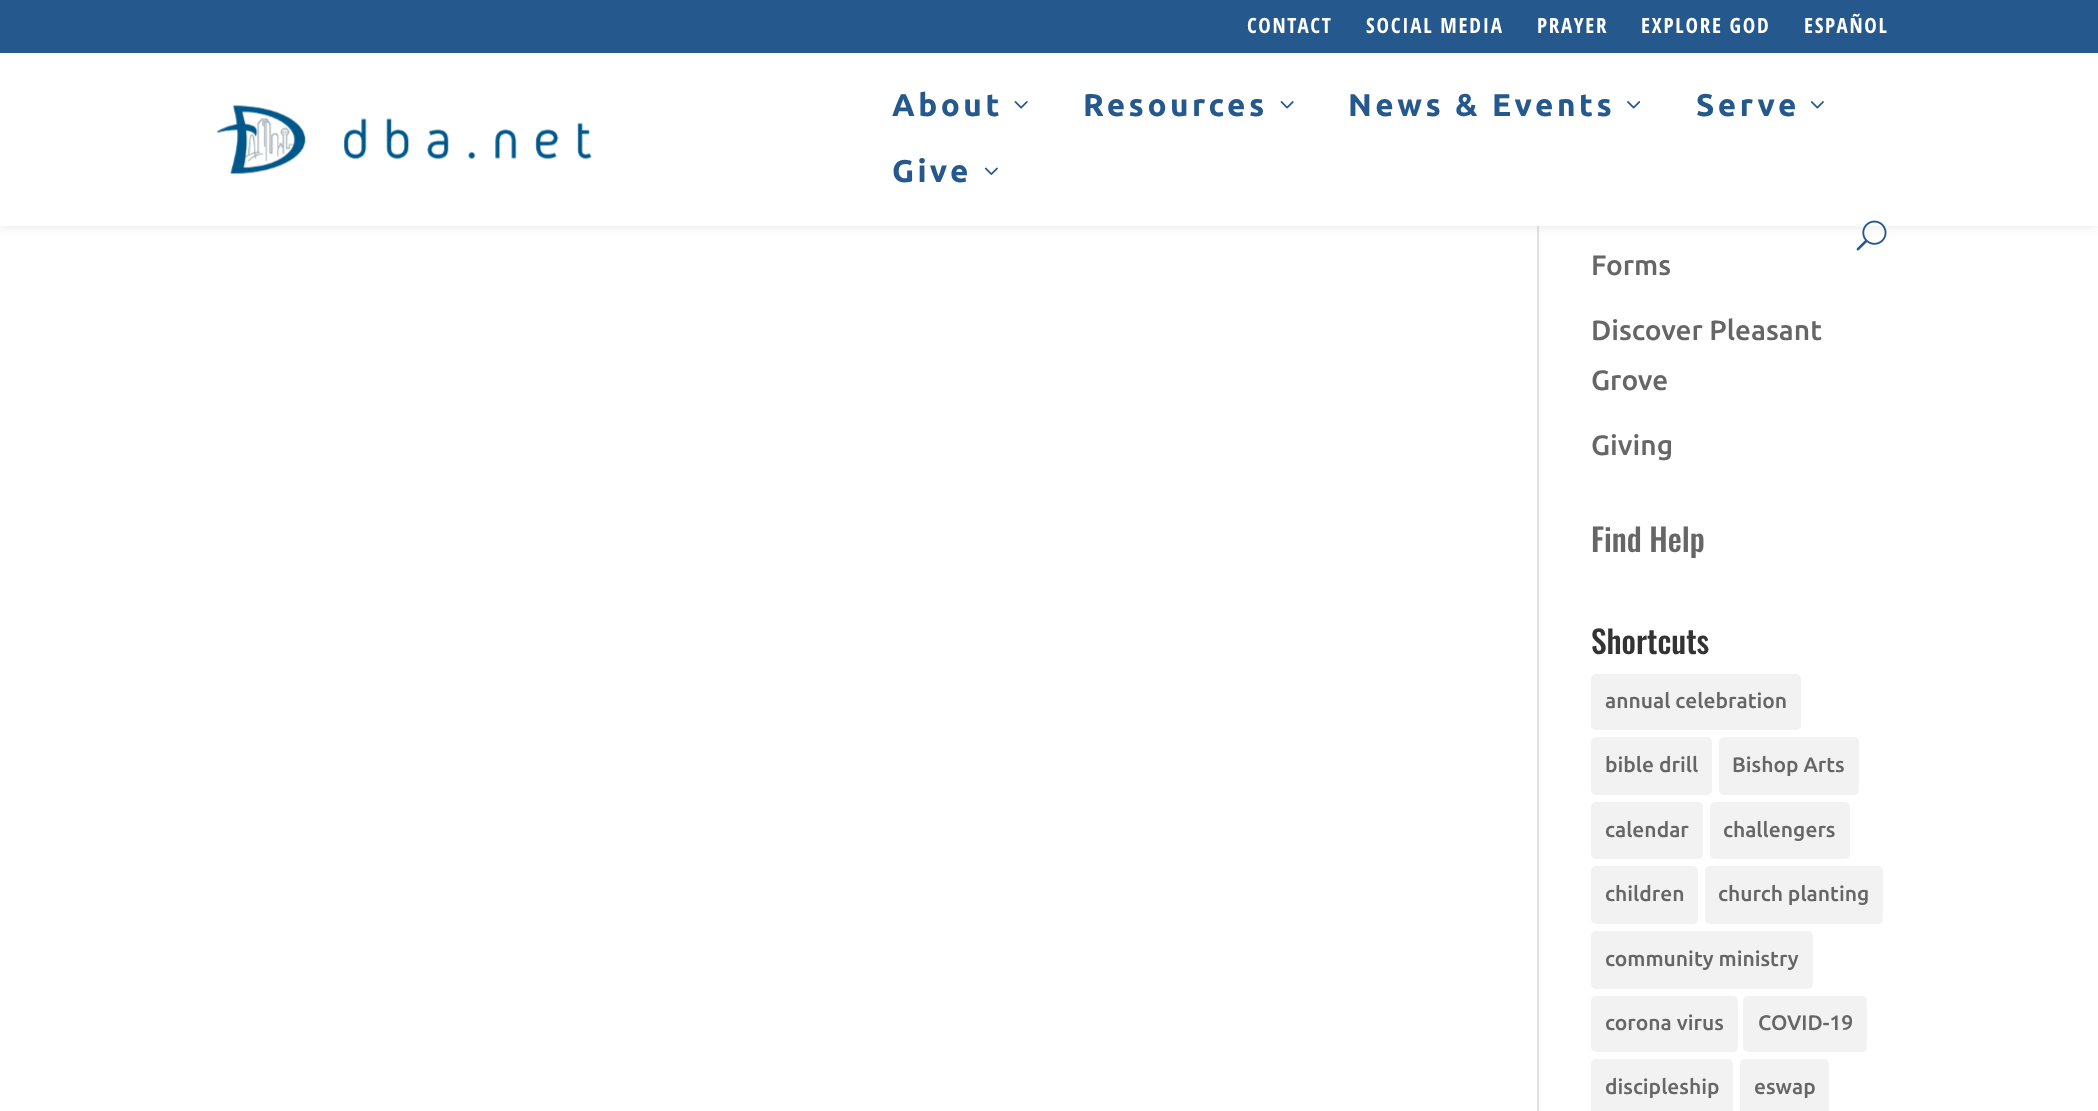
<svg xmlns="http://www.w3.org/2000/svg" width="2098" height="1111">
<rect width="100%" height="100%" fill="#fff"/>
<rect x="1537" y="226" width="2" height="885" fill="#e2e2e2"/>
<rect y="53" width="2098" height="173" fill="#0000001a" filter="blur(6px)"/>
<rect width="2098" height="53" fill="#25588d"/>
<text x="1247" y="33" style="font-family:Open Sans Condensed;font-size:21px;font-weight:bold;letter-spacing:1.75px;fill:#fff">CONTACT</text>
<text x="1366" y="33" style="font-family:Open Sans Condensed;font-size:21px;font-weight:bold;letter-spacing:1.75px;fill:#fff">SOCIAL MEDIA</text>
<text x="1537" y="33" style="font-family:Open Sans Condensed;font-size:21px;font-weight:bold;letter-spacing:1.75px;fill:#fff">PRAYER</text>
<text x="1641" y="33" style="font-family:Open Sans Condensed;font-size:21px;font-weight:bold;letter-spacing:1.75px;fill:#fff">EXPLORE GOD</text>
<text x="1804" y="33" style="font-family:Open Sans Condensed;font-size:21px;font-weight:bold;letter-spacing:1.75px;fill:#fff">ESPAÑOL</text>
<rect y="53" width="2098" height="173" fill="#fff"/>
<image x="216" y="105" width="376" height="69" href="media/1.png"/>
<text x="892" y="116" style="font-family:Ubuntu;font-size:31.5px;font-weight:bold;letter-spacing:3.5px;fill:#25588d">About</text>
<image x="1014" y="101" width="14" height="8" href="media/2.png"/>
<text x="1083" y="116" style="font-family:Ubuntu;font-size:31.5px;font-weight:bold;letter-spacing:3.5px;fill:#25588d">Resources</text>
<image x="1280" y="101" width="14" height="8" href="media/2.png"/>
<text x="1348" y="116" style="font-family:Ubuntu;font-size:31.5px;font-weight:bold;letter-spacing:3.5px;fill:#25588d">News &amp; Events</text>
<image x="1627" y="101" width="14" height="8" href="media/3.png"/>
<text x="1696" y="116" style="font-family:Ubuntu;font-size:31.5px;font-weight:bold;letter-spacing:3.5px;fill:#25588d">Serve</text>
<image x="1810" y="101" width="14" height="8" href="media/4.png"/>
<text x="892" y="182" style="font-family:Ubuntu;font-size:31.5px;font-weight:bold;letter-spacing:3.5px;fill:#25588d">Give</text>
<image x="984" y="167" width="14" height="8" href="media/5.png"/>
<image x="1856" y="220" width="31" height="31" href="media/6.png"/>
<text x="1591" y="275" style="font-family:Ubuntu;font-size:28px;font-weight:500;fill:#666">Forms</text>
<text x="1591" y="340" style="font-family:Ubuntu;font-size:28px;font-weight:500;fill:#666">Discover Pleasant</text>
<text x="1591" y="390" style="font-family:Ubuntu;font-size:28px;font-weight:500;fill:#666">Grove</text>
<text x="1591" y="455" style="font-family:Ubuntu;font-size:28px;font-weight:500;fill:#666">Giving</text>
<text x="1591" y="552" style="font-family:Oswald;font-size:31.5px;font-weight:500;fill:#666">Find Help</text>
<text x="1591" y="654" style="font-family:Oswald;font-size:31.5px;font-weight:500;fill:#333">Shortcuts</text>
<rect x="1591" y="674" width="210" height="56" rx="5" fill="#f2f2f2"/>
<text x="1605" y="708" style="font-family:Ubuntu;font-size:21px;font-weight:500;fill:#666">annual celebration</text>
<rect x="1591" y="737" width="121" height="58" rx="5" fill="#f2f2f2"/>
<text x="1605" y="772" style="font-family:Ubuntu;font-size:21px;font-weight:500;fill:#666">bible drill</text>
<rect x="1719" y="737" width="140" height="58" rx="5" fill="#f2f2f2"/>
<text x="1732" y="772" style="font-family:Ubuntu;font-size:21px;font-weight:500;fill:#666">Bishop Arts</text>
<rect x="1591" y="802" width="112" height="57" rx="5" fill="#f2f2f2"/>
<text x="1605" y="837" style="font-family:Ubuntu;font-size:21px;font-weight:500;fill:#666">calendar</text>
<rect x="1710" y="802" width="140" height="57" rx="5" fill="#f2f2f2"/>
<text x="1723" y="837" style="font-family:Ubuntu;font-size:21px;font-weight:500;fill:#666">challengers</text>
<rect x="1591" y="866" width="107" height="58" rx="5" fill="#f2f2f2"/>
<text x="1605" y="901" style="font-family:Ubuntu;font-size:21px;font-weight:500;fill:#666">children</text>
<rect x="1705" y="866" width="178" height="58" rx="5" fill="#f2f2f2"/>
<text x="1718" y="901" style="font-family:Ubuntu;font-size:21px;font-weight:500;fill:#666">church planting</text>
<rect x="1591" y="931" width="222" height="58" rx="5" fill="#f2f2f2"/>
<text x="1605" y="966" style="font-family:Ubuntu;font-size:21px;font-weight:500;fill:#666">community ministry</text>
<rect x="1591" y="996" width="147" height="56" rx="5" fill="#f2f2f2"/>
<text x="1605" y="1030" style="font-family:Ubuntu;font-size:21px;font-weight:500;fill:#666">corona virus</text>
<rect x="1743" y="996" width="124" height="56" rx="5" fill="#f2f2f2"/>
<text x="1758" y="1030" style="font-family:Ubuntu;font-size:21px;font-weight:500;fill:#666">COVID-19</text>
<rect x="1591" y="1059" width="142" height="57" rx="5" fill="#f2f2f2"/>
<text x="1605" y="1094" style="font-family:Ubuntu;font-size:21px;font-weight:500;fill:#666">discipleship</text>
<rect x="1740" y="1059" width="89" height="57" rx="5" fill="#f2f2f2"/>
<text x="1754" y="1094" style="font-family:Ubuntu;font-size:21px;font-weight:500;fill:#666">eswap</text>
</svg>
